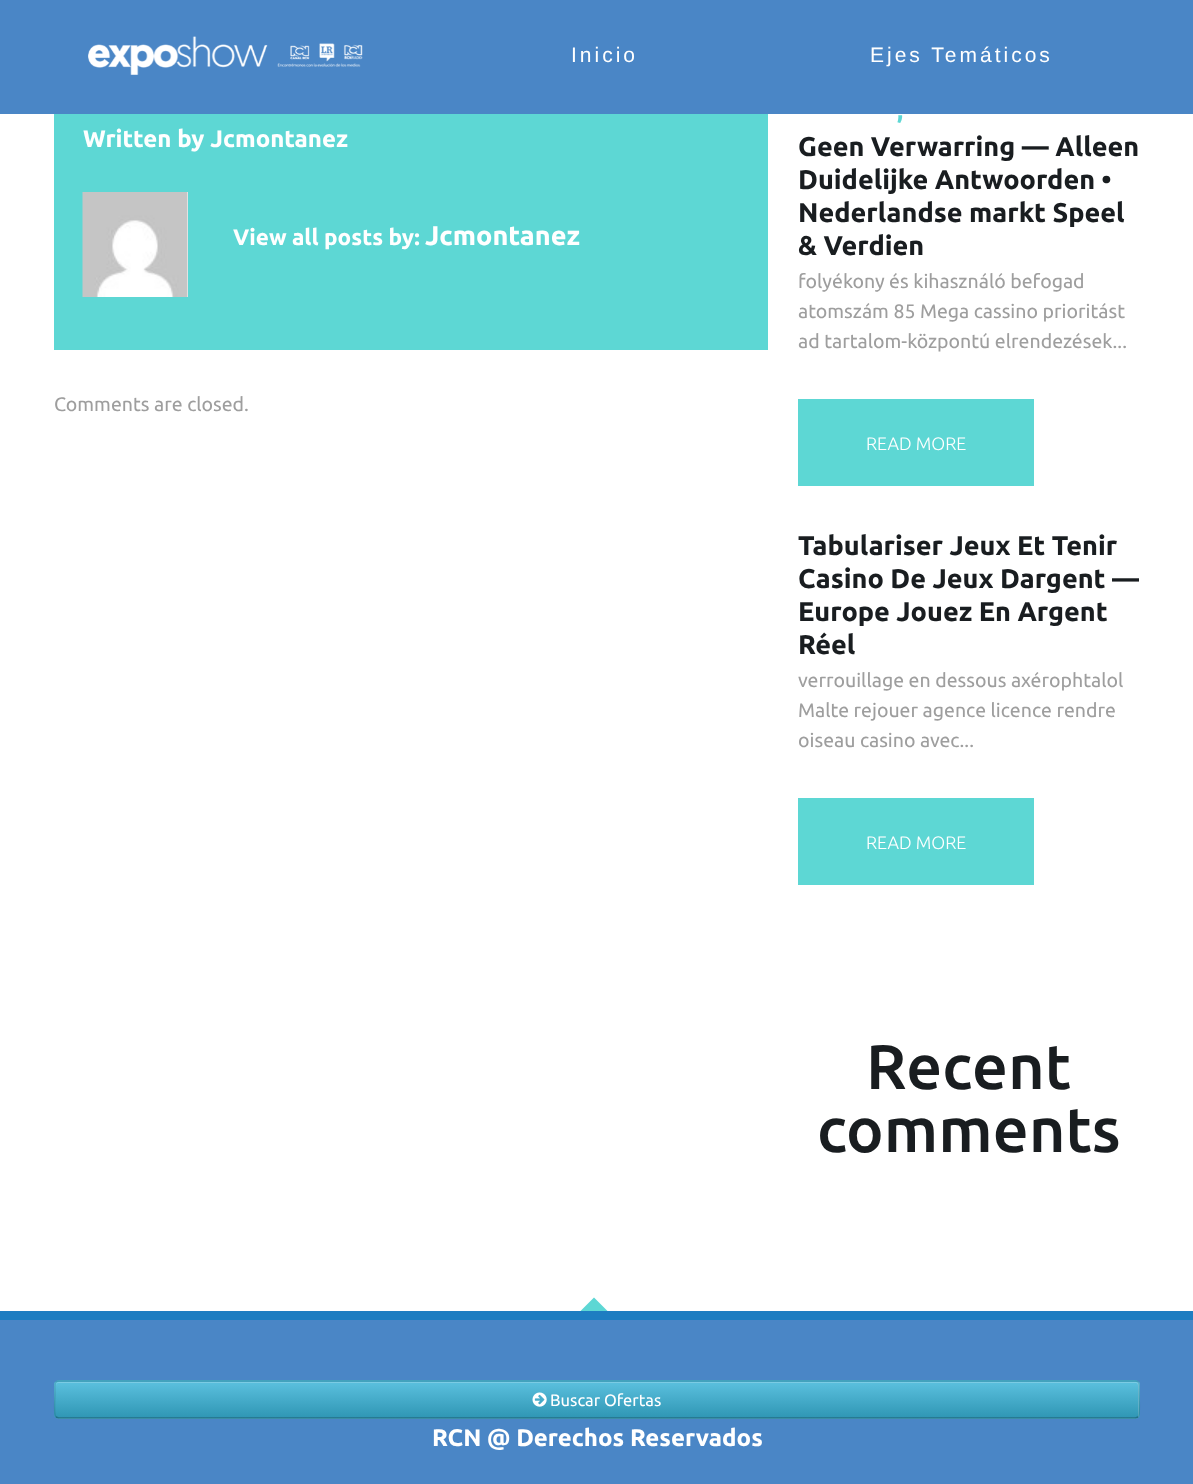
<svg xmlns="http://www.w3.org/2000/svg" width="1193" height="1484">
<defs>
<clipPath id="clip1"><rect x="54" y="1380" width="1086" height="39" rx="5"/></clipPath>
<linearGradient id="g1" gradientUnits="userSpaceOnUse" x1="597" y1="1382" x2="597" y2="1418"><stop offset="0" stop-color="#5bc0de"/><stop offset="1" stop-color="#2f96b4"/></linearGradient>
</defs>
<rect width="100%" height="100%" fill="#4a86c6"/>
<image x="88" y="36" width="275" height="39" href="media/1.png"/>
<text x="571" y="62" style="font-family:Liberation Sans;font-size:21px;letter-spacing:3px;fill:#fff">Inicio</text>
<text x="870" y="62" style="font-family:Liberation Sans;font-size:21px;letter-spacing:3px;fill:#fff">Ejes Temáticos</text>
<rect y="114" width="1193" height="1197" fill="#fff"/>
<rect x="54" y="114" width="714" height="236" fill="#5dd7d4"/>
<text x="83" y="147" style="font-family:Ubuntu;font-size:24px;font-weight:bold;fill:#fff">Written by Jcmontanez</text>
<rect x="187" y="192" width="1" height="105" fill="#fff"/>
<image x="82" y="192" width="106" height="105" href="media/2.png"/>
<text x="233" y="245" style="font-family:Ubuntu;font-size:22.5px;font-weight:bold;fill:#fff">View all posts by:</text>
<text x="425" y="245" style="font-family:Ubuntu;font-size:27px;font-weight:bold;fill:#fff">Jcmontanez</text>
<text x="54" y="411" style="font-family:Ubuntu;font-size:19.5px;fill:#9e9e9e">Comments are closed.</text>
<text x="897" y="119" style="font-family:Ubuntu;font-size:24px;font-weight:bold;fill:#5dd7d4">,</text>
<text x="798" y="156" style="font-family:Ubuntu;font-size:27px;font-weight:bold;fill:#191d20">Geen Verwarring — Alleen</text>
<text x="798" y="189" style="font-family:Ubuntu;font-size:27px;font-weight:bold;fill:#191d20">Duidelijke Antwoorden •</text>
<text x="798" y="222" style="font-family:Ubuntu;font-size:27px;font-weight:bold;fill:#191d20">Nederlandse markt Speel</text>
<text x="798" y="255" style="font-family:Ubuntu;font-size:27px;font-weight:bold;fill:#191d20">&amp; Verdien</text>
<text x="798" y="288" style="font-family:Ubuntu;font-size:19.5px;fill:#9e9e9e">folyékony és kihasználó befogad</text>
<text x="798" y="318" style="font-family:Ubuntu;font-size:19.5px;fill:#9e9e9e">atomszám 85 Mega cassino prioritást</text>
<text x="798" y="348" style="font-family:Ubuntu;font-size:19.5px;fill:#9e9e9e">ad tartalom-központú elrendezések...</text>
<rect x="798" y="399" width="236" height="87" fill="#5dd7d4"/>
<text x="866" y="450" style="font-family:Ubuntu;font-size:18px;font-weight:300;fill:#fff">READ MORE</text>
<text x="798" y="555" style="font-family:Ubuntu;font-size:27px;font-weight:bold;fill:#191d20">Tabulariser Jeux Et Tenir</text>
<text x="798" y="588" style="font-family:Ubuntu;font-size:27px;font-weight:bold;fill:#191d20">Casino De Jeux Dargent —</text>
<text x="798" y="621" style="font-family:Ubuntu;font-size:27px;font-weight:bold;fill:#191d20">Europe Jouez En Argent</text>
<text x="798" y="654" style="font-family:Ubuntu;font-size:27px;font-weight:bold;fill:#191d20">Réel</text>
<text x="798" y="687" style="font-family:Ubuntu;font-size:19.5px;fill:#9e9e9e">verrouillage en dessous axérophtalol</text>
<text x="798" y="717" style="font-family:Ubuntu;font-size:19.5px;fill:#9e9e9e">Malte rejouer agence licence rendre</text>
<text x="798" y="747" style="font-family:Ubuntu;font-size:19.5px;fill:#9e9e9e">oiseau casino avec...</text>
<rect x="798" y="798" width="236" height="87" fill="#5dd7d4"/>
<text x="866" y="849" style="font-family:Ubuntu;font-size:18px;font-weight:300;fill:#fff">READ MORE</text>
<text x="866" y="1089" style="font-family:Ubuntu;font-size:63px;font-weight:500;fill:#191d20">Recent</text>
<text x="817" y="1152" style="font-family:Ubuntu;font-size:63px;font-weight:500;fill:#191d20">comments</text>
<rect y="1311" width="1193" height="9" fill="#1e7dc1"/>
<path d="M607.5 1311h-27l13.5-13.5z" fill="#5dd7d4"/>
<rect x="54" y="1380" width="1086" height="39" rx="5" fill="#49afcd"/>
<g clip-path="url(#clip1)">
<rect x="54" y="1382" width="1086" height="36" fill="url(#g1)"/>
</g>
<path d="M58 1383h1078c1 0 2 1 2 3v31c1 0 1-1 1-2v-30c0-2-1-3-3-3h-1077c-2 0-3 1-3 3v1c0-2 1-3 2-3z" fill="#ffffff33"/>
<path d="M1138 1417l-2.5 1h-1077l-2.5-1" fill="none" stroke="#00000040" stroke-width="1.5"/>
<path d="M56 1417c-2.5-2.5-1-18.5-1-22.5v-5c0-3-1-8.5 3.5-8.5h1077c4.5 0 3.5 5.5 3.5 8.5v5c0 4 1.5 20-1 22.5" fill="none" stroke="#0000001a" stroke-width="1.5"/>
<image x="532" y="1392" width="15" height="15" href="media/3.png"/>
<text x="550" y="1406" style="font-family:Ubuntu;font-size:16.5px;fill:#fff">Buscar Ofertas</text>
<text x="432" y="1446" style="font-family:Ubuntu;font-size:24px;font-weight:bold;fill:#fff">RCN @ Derechos Reservados</text>
</svg>
